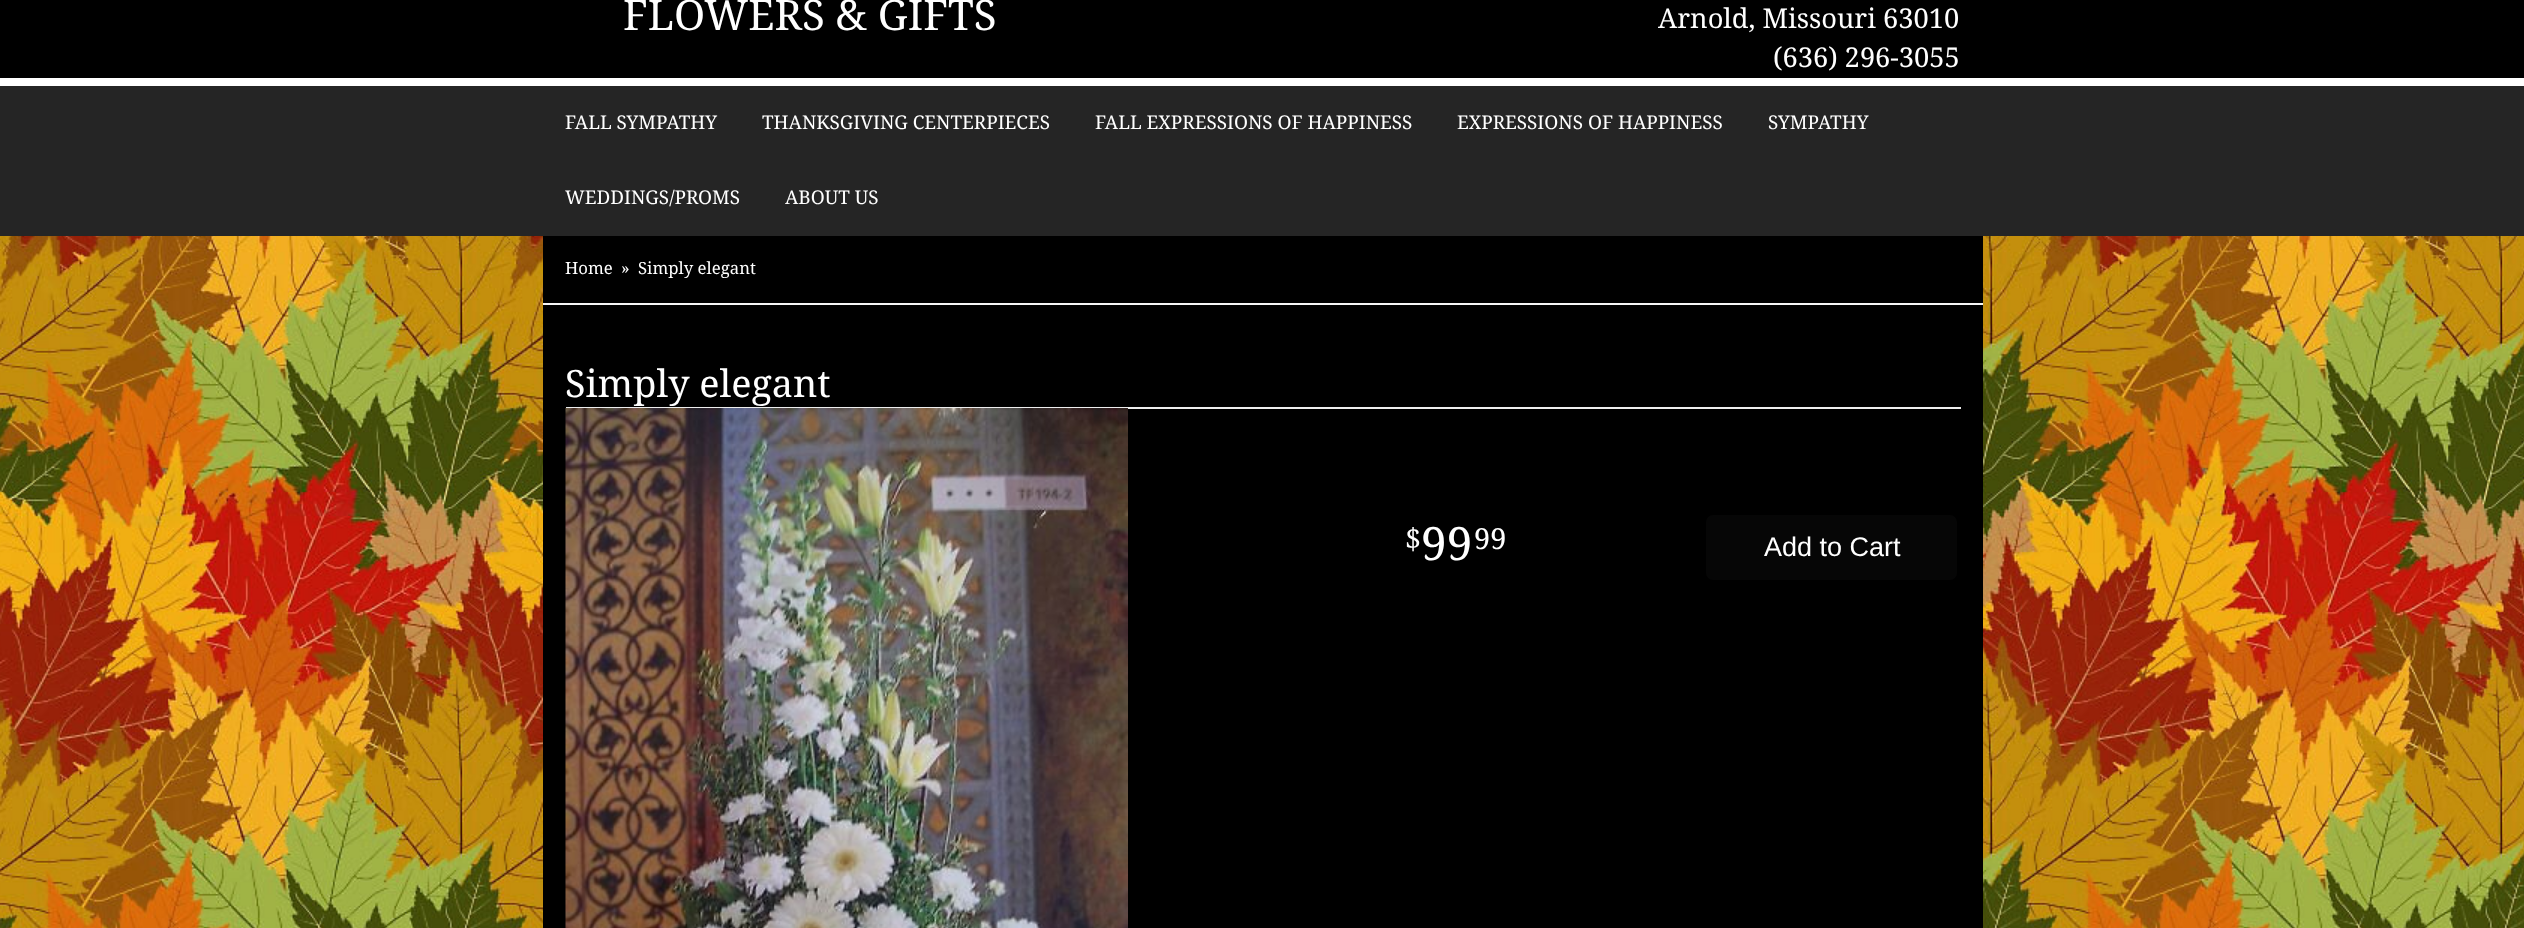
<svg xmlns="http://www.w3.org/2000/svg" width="2524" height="928">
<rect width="100%" height="100%" fill="#fff"/>
<image x="0" y="236" width="2524" height="692" href="media/1.png"/>
<rect width="2524" height="78" fill="#000"/>
<text x="623" y="30" style="font-family:Droid Serif;font-size:42px;fill:#fff">FLOWERS &amp; GIFTS</text>
<text x="1658" y="28" style="font-family:Droid Serif;font-size:27.25px;fill:#fff">Arnold, Missouri 63010</text>
<text x="1773" y="67" style="font-family:Droid Serif;font-size:27.25px;fill:#fff">(636) 296-3055</text>
<rect y="86" width="2524" height="150" fill="#252525"/>
<text x="565" y="129" style="font-family:Droid Serif;font-size:18.9px;fill:#fff">FALL SYMPATHY</text>
<text x="762" y="129" style="font-family:Droid Serif;font-size:18.9px;fill:#fff">THANKSGIVING CENTERPIECES</text>
<text x="1095" y="129" style="font-family:Droid Serif;font-size:18.9px;fill:#fff">FALL EXPRESSIONS OF HAPPINESS</text>
<text x="1457" y="129" style="font-family:Droid Serif;font-size:18.9px;fill:#fff">EXPRESSIONS OF HAPPINESS</text>
<text x="1768" y="129" style="font-family:Droid Serif;font-size:18.9px;fill:#fff">SYMPATHY</text>
<text x="565" y="204" style="font-family:Droid Serif;font-size:18.9px;fill:#fff">WEDDINGS/PROMS</text>
<text x="785" y="204" style="font-family:Droid Serif;font-size:18.9px;fill:#fff">ABOUT US</text>
<rect x="543" y="236" width="1440" height="67" fill="#000"/>
<rect x="543" y="303" width="1440" height="2" fill="#f6f6f6"/>
<text x="565" y="274" style="font-family:Droid Serif;font-size:16.75px;fill:#fff">Home</text>
<text x="621" y="274" style="font-family:Droid Serif;font-size:16.75px;fill:#fff">»</text>
<text x="638" y="274" style="font-family:Droid Serif;font-size:16.75px;fill:#fff">Simply elegant</text>
<rect x="543" y="305" width="1440" height="623" fill="#000"/>
<rect x="566" y="407" width="1395" height="2" fill="#eee"/>
<text x="565" y="397" style="font-family:Droid Serif;font-size:37.75px;fill:#fff">Simply elegant</text>
<image x="565" y="408" width="563" height="520" href="media/2.png"/>
<text x="1405" y="549" style="font-family:Droid Serif;font-size:29px;fill:#fff">$</text>
<text x="1421" y="560" style="font-family:Droid Serif;font-size:46px;fill:#fff">99</text>
<text x="1474" y="549" style="font-family:Droid Serif;font-size:29px;fill:#fff">99</text>
<rect x="1705" y="514" width="253" height="67" rx="8" fill="#060606" stroke="#000" stroke-width="2"/>
<text x="1764" y="556" style="font-family:Liberation Sans;font-size:27px;fill:#fff">Add to Cart</text>
</svg>
